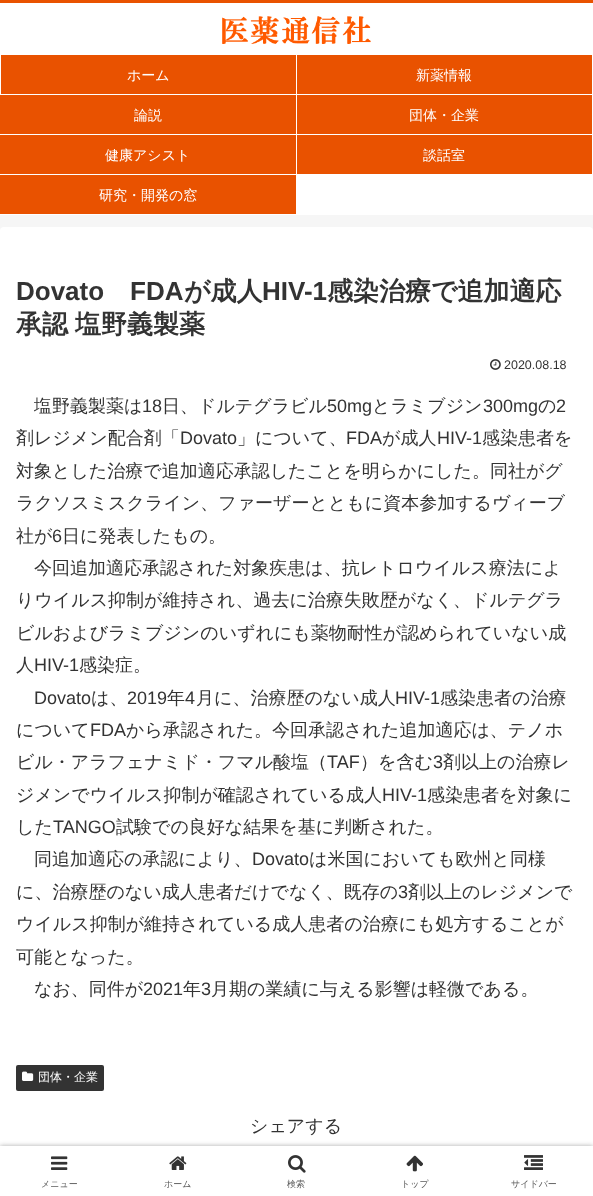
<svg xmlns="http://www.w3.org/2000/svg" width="593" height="1196">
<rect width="100%" height="100%" fill="#f6f6f6"/>
<rect y="3" width="593" height="212" fill="#fff"/>
<rect width="593" height="3" fill="#e95200"/>
<image x="222" y="16" width="149" height="28" href="media/1.png"/>
<rect x="1" y="55" width="295" height="39" fill="#e95200"/>
<text x="127" y="80" style="font-family:WenQuanYi Zen Hei;font-size:14px;font-weight:500;fill:#fff">ホーム</text>
<rect x="297" y="55" width="295" height="39" fill="#e95200"/>
<text x="416" y="80" style="font-family:WenQuanYi Zen Hei;font-size:14px;font-weight:500;fill:#fff">新薬情報</text>
<rect y="95" width="296" height="39" fill="#e95200"/>
<text x="134" y="120" style="font-family:WenQuanYi Zen Hei;font-size:14px;font-weight:500;fill:#fff">論説</text>
<rect x="297" y="95" width="295" height="39" fill="#e95200"/>
<text x="409" y="120" style="font-family:WenQuanYi Zen Hei;font-size:14px;font-weight:500;fill:#fff">団体・企業</text>
<rect y="135" width="296" height="39" fill="#e95200"/>
<text x="105" y="160" style="font-family:WenQuanYi Zen Hei;font-size:14px;font-weight:500;fill:#fff">健康アシスト</text>
<rect x="297" y="135" width="295" height="39" fill="#e95200"/>
<text x="423" y="160" style="font-family:WenQuanYi Zen Hei;font-size:14px;font-weight:500;fill:#fff">談話室</text>
<rect y="175" width="296" height="39" fill="#e95200"/>
<text x="99" y="200" style="font-family:WenQuanYi Zen Hei;font-size:14px;font-weight:500;fill:#fff">研究・開発の窓</text>
<rect y="227" width="593" height="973" rx="4" fill="#fff"/>
<text x="16" y="300" style="font-family:Liberation Sans;font-size:26px;font-weight:bold;fill:#333">Dovato</text>
<text x="130" y="300" style="font-family:Liberation Sans;font-size:26px;font-weight:bold;fill:#333">FDA</text>
<text x="184" y="300" style="font-family:WenQuanYi Zen Hei;font-size:26px;font-weight:bold;fill:#333">が成人</text>
<text x="262" y="300" style="font-family:Liberation Sans;font-size:26px;font-weight:bold;fill:#333">HIV-1</text>
<text x="327" y="300" style="font-family:WenQuanYi Zen Hei;font-size:26px;font-weight:bold;fill:#333">感染治療で追加適応</text>
<text x="16" y="333" style="font-family:WenQuanYi Zen Hei;font-size:26px;font-weight:bold;fill:#333">承認</text>
<text x="75" y="333" style="font-family:WenQuanYi Zen Hei;font-size:26px;font-weight:bold;fill:#333">塩野義製薬</text>
<image x="490" y="359" width="11" height="11" href="media/2.png"/>
<text x="504" y="369" style="font-family:Liberation Sans;font-size:12.5px;fill:#333">2020.08.18</text>
<text x="34" y="412" style="font-family:WenQuanYi Zen Hei;font-size:18px;font-weight:500;fill:#333">塩野義製薬は</text>
<text x="142" y="412" style="font-family:Liberation Sans;font-size:18px;fill:#333">18</text>
<text x="162" y="412" style="font-family:WenQuanYi Zen Hei;font-size:18px;font-weight:500;fill:#333">日、ドルテグラビル</text>
<text x="327" y="412" style="font-family:Liberation Sans;font-size:18px;fill:#333">50mg</text>
<text x="372" y="412" style="font-family:WenQuanYi Zen Hei;font-size:18px;font-weight:500;fill:#333">とラミブジン</text>
<text x="483" y="412" style="font-family:Liberation Sans;font-size:18px;fill:#333">300mg</text>
<text x="538" y="412" style="font-family:WenQuanYi Zen Hei;font-size:18px;font-weight:500;fill:#333">の</text>
<text x="556" y="412" style="font-family:Liberation Sans;font-size:18px;fill:#333">2</text>
<text x="16" y="444" style="font-family:WenQuanYi Zen Hei;font-size:18px;font-weight:500;fill:#333">剤レジメン配合剤「</text>
<text x="180" y="444" style="font-family:Liberation Sans;font-size:18px;fill:#333">Dovato</text>
<text x="237" y="444" style="font-family:WenQuanYi Zen Hei;font-size:18px;font-weight:500;fill:#333">」について、</text>
<text x="346" y="444" style="font-family:Liberation Sans;font-size:18px;fill:#333">FDA</text>
<text x="382" y="444" style="font-family:WenQuanYi Zen Hei;font-size:18px;font-weight:500;fill:#333">が成人</text>
<text x="437" y="444" style="font-family:Liberation Sans;font-size:18px;fill:#333">HIV-1</text>
<text x="482" y="444" style="font-family:WenQuanYi Zen Hei;font-size:18px;font-weight:500;fill:#333">感染患者を</text>
<text x="16" y="477" style="font-family:WenQuanYi Zen Hei;font-size:18px;font-weight:500;fill:#333">対象とした治療で追加適応承認したことを明らかにした。同社がグ</text>
<text x="16" y="509" style="font-family:WenQuanYi Zen Hei;font-size:18px;font-weight:500;fill:#333">ラクソスミスクライン、ファーザーとともに資本参加するヴィーブ</text>
<text x="16" y="542" style="font-family:WenQuanYi Zen Hei;font-size:18px;font-weight:500;fill:#333">社が</text>
<text x="52" y="542" style="font-family:Liberation Sans;font-size:18px;fill:#333">6</text>
<text x="62" y="542" style="font-family:WenQuanYi Zen Hei;font-size:18px;font-weight:500;fill:#333">日に発表したもの。</text>
<text x="34" y="574" style="font-family:WenQuanYi Zen Hei;font-size:18px;font-weight:500;fill:#333">今回追加適応承認された対象疾患は、抗レトロウイルス療法によ</text>
<text x="16" y="606" style="font-family:WenQuanYi Zen Hei;font-size:18px;font-weight:500;fill:#333">りウイルス抑制が維持され、過去に治療失敗歴がなく、ドルテグラ</text>
<text x="16" y="639" style="font-family:WenQuanYi Zen Hei;font-size:18px;font-weight:500;fill:#333">ビルおよびラミブジンのいずれにも薬物耐性が認められていない成</text>
<text x="16" y="671" style="font-family:WenQuanYi Zen Hei;font-size:18px;font-weight:500;fill:#333">人</text>
<text x="34" y="671" style="font-family:Liberation Sans;font-size:18px;fill:#333">HIV-1</text>
<text x="79" y="671" style="font-family:WenQuanYi Zen Hei;font-size:18px;font-weight:500;fill:#333">感染症。</text>
<text x="34" y="704" style="font-family:Liberation Sans;font-size:18px;fill:#333">Dovato</text>
<text x="91" y="704" style="font-family:WenQuanYi Zen Hei;font-size:18px;font-weight:500;fill:#333">は、</text>
<text x="127" y="704" style="font-family:Liberation Sans;font-size:18px;fill:#333">2019</text>
<text x="167" y="704" style="font-family:WenQuanYi Zen Hei;font-size:18px;font-weight:500;fill:#333">年</text>
<text x="185" y="704" style="font-family:Liberation Sans;font-size:18px;fill:#333">4</text>
<text x="196" y="704" style="font-family:WenQuanYi Zen Hei;font-size:18px;font-weight:500;fill:#333">月に、治療歴のない成人</text>
<text x="395" y="704" style="font-family:Liberation Sans;font-size:18px;fill:#333">HIV-1</text>
<text x="440" y="704" style="font-family:WenQuanYi Zen Hei;font-size:18px;font-weight:500;fill:#333">感染患者の治療</text>
<text x="16" y="736" style="font-family:WenQuanYi Zen Hei;font-size:18px;font-weight:500;fill:#333">について</text>
<text x="90" y="736" style="font-family:Liberation Sans;font-size:18px;fill:#333">FDA</text>
<text x="126" y="736" style="font-family:WenQuanYi Zen Hei;font-size:18px;font-weight:500;fill:#333">から承認された。今回承認された追加適応は、テノホ</text>
<text x="16" y="768" style="font-family:WenQuanYi Zen Hei;font-size:18px;font-weight:500;fill:#333">ビル・アラフェナミド・フマル酸塩（</text>
<text x="327" y="768" style="font-family:Liberation Sans;font-size:18px;fill:#333">TAF</text>
<text x="360" y="768" style="font-family:WenQuanYi Zen Hei;font-size:18px;font-weight:500;fill:#333">）を含む</text>
<text x="433" y="768" style="font-family:Liberation Sans;font-size:18px;fill:#333">3</text>
<text x="443" y="768" style="font-family:WenQuanYi Zen Hei;font-size:18px;font-weight:500;fill:#333">剤以上の治療レ</text>
<text x="16" y="801" style="font-family:WenQuanYi Zen Hei;font-size:18px;font-weight:500;fill:#333">ジメンでウイルス抑制が確認されている成人</text>
<text x="382" y="801" style="font-family:Liberation Sans;font-size:18px;fill:#333">HIV-1</text>
<text x="427" y="801" style="font-family:WenQuanYi Zen Hei;font-size:18px;font-weight:500;fill:#333">感染患者を対象に</text>
<text x="16" y="833" style="font-family:WenQuanYi Zen Hei;font-size:18px;font-weight:500;fill:#333">した</text>
<text x="53" y="833" style="font-family:Liberation Sans;font-size:18px;fill:#333">TANGO</text>
<text x="116" y="833" style="font-family:WenQuanYi Zen Hei;font-size:18px;font-weight:500;fill:#333">試験での良好な結果を基に判断された。</text>
<text x="34" y="865" style="font-family:WenQuanYi Zen Hei;font-size:18px;font-weight:500;fill:#333">同追加適応の承認により、</text>
<text x="252" y="865" style="font-family:Liberation Sans;font-size:18px;fill:#333">Dovato</text>
<text x="309" y="865" style="font-family:WenQuanYi Zen Hei;font-size:18px;font-weight:500;fill:#333">は米国においても欧州と同様</text>
<text x="16" y="898" style="font-family:WenQuanYi Zen Hei;font-size:18px;font-weight:500;fill:#333">に、治療歴のない成人患者だけでなく、既存の</text>
<text x="398" y="898" style="font-family:Liberation Sans;font-size:18px;fill:#333">3</text>
<text x="408" y="898" style="font-family:WenQuanYi Zen Hei;font-size:18px;font-weight:500;fill:#333">剤以上のレジメンで</text>
<text x="16" y="930" style="font-family:WenQuanYi Zen Hei;font-size:18px;font-weight:500;fill:#333">ウイルス抑制が維持されている成人患者の治療にも処方することが</text>
<text x="16" y="963" style="font-family:WenQuanYi Zen Hei;font-size:18px;font-weight:500;fill:#333">可能となった。</text>
<text x="34" y="995" style="font-family:WenQuanYi Zen Hei;font-size:18px;font-weight:500;fill:#333">なお、同件が</text>
<text x="143" y="995" style="font-family:Liberation Sans;font-size:18px;fill:#333">2021</text>
<text x="183" y="995" style="font-family:WenQuanYi Zen Hei;font-size:18px;font-weight:500;fill:#333">年</text>
<text x="201" y="995" style="font-family:Liberation Sans;font-size:18px;fill:#333">3</text>
<text x="211" y="995" style="font-family:WenQuanYi Zen Hei;font-size:18px;font-weight:500;fill:#333">月期の業績に与える影響は軽微である。</text>
<rect x="16" y="1065" width="88" height="26" rx="2" fill="#333"/>
<image x="22" y="1071" width="12" height="10" href="media/3.png"/>
<text x="38" y="1081" style="font-family:WenQuanYi Zen Hei;font-size:12px;font-weight:500;fill:#fff">団体・企業</text>
<text x="250" y="1132" style="font-family:WenQuanYi Zen Hei;font-size:18px;font-weight:500;fill:#333">シェアする</text>
<rect y="1146" width="593" height="50" fill="#a9a9a9" filter="blur(2.5px)"/>
<rect y="1146" width="593" height="50" fill="#fff"/>
<image x="51" y="1156" width="17" height="14" href="media/4.png"/>
<text x="41" y="1187" style="font-family:WenQuanYi Zen Hei;font-size:9px;font-weight:500;fill:#5c5c5c">メニュー</text>
<image x="169" y="1156" width="18" height="14" href="media/5.png"/>
<text x="164" y="1187" style="font-family:WenQuanYi Zen Hei;font-size:9px;font-weight:500;fill:#5c5c5c">ホーム</text>
<image x="288" y="1155" width="18" height="18" href="media/6.png"/>
<text x="287" y="1187" style="font-family:WenQuanYi Zen Hei;font-size:9px;font-weight:500;fill:#5c5c5c">検索</text>
<image x="406" y="1155" width="17" height="17" href="media/7.png"/>
<text x="401" y="1187" style="font-family:WenQuanYi Zen Hei;font-size:9px;font-weight:500;fill:#5c5c5c">トップ</text>
<image x="524" y="1155" width="19" height="15" href="media/8.png"/>
<text x="511" y="1187" style="font-family:WenQuanYi Zen Hei;font-size:9px;font-weight:500;fill:#5c5c5c">サイドバー</text>
</svg>
